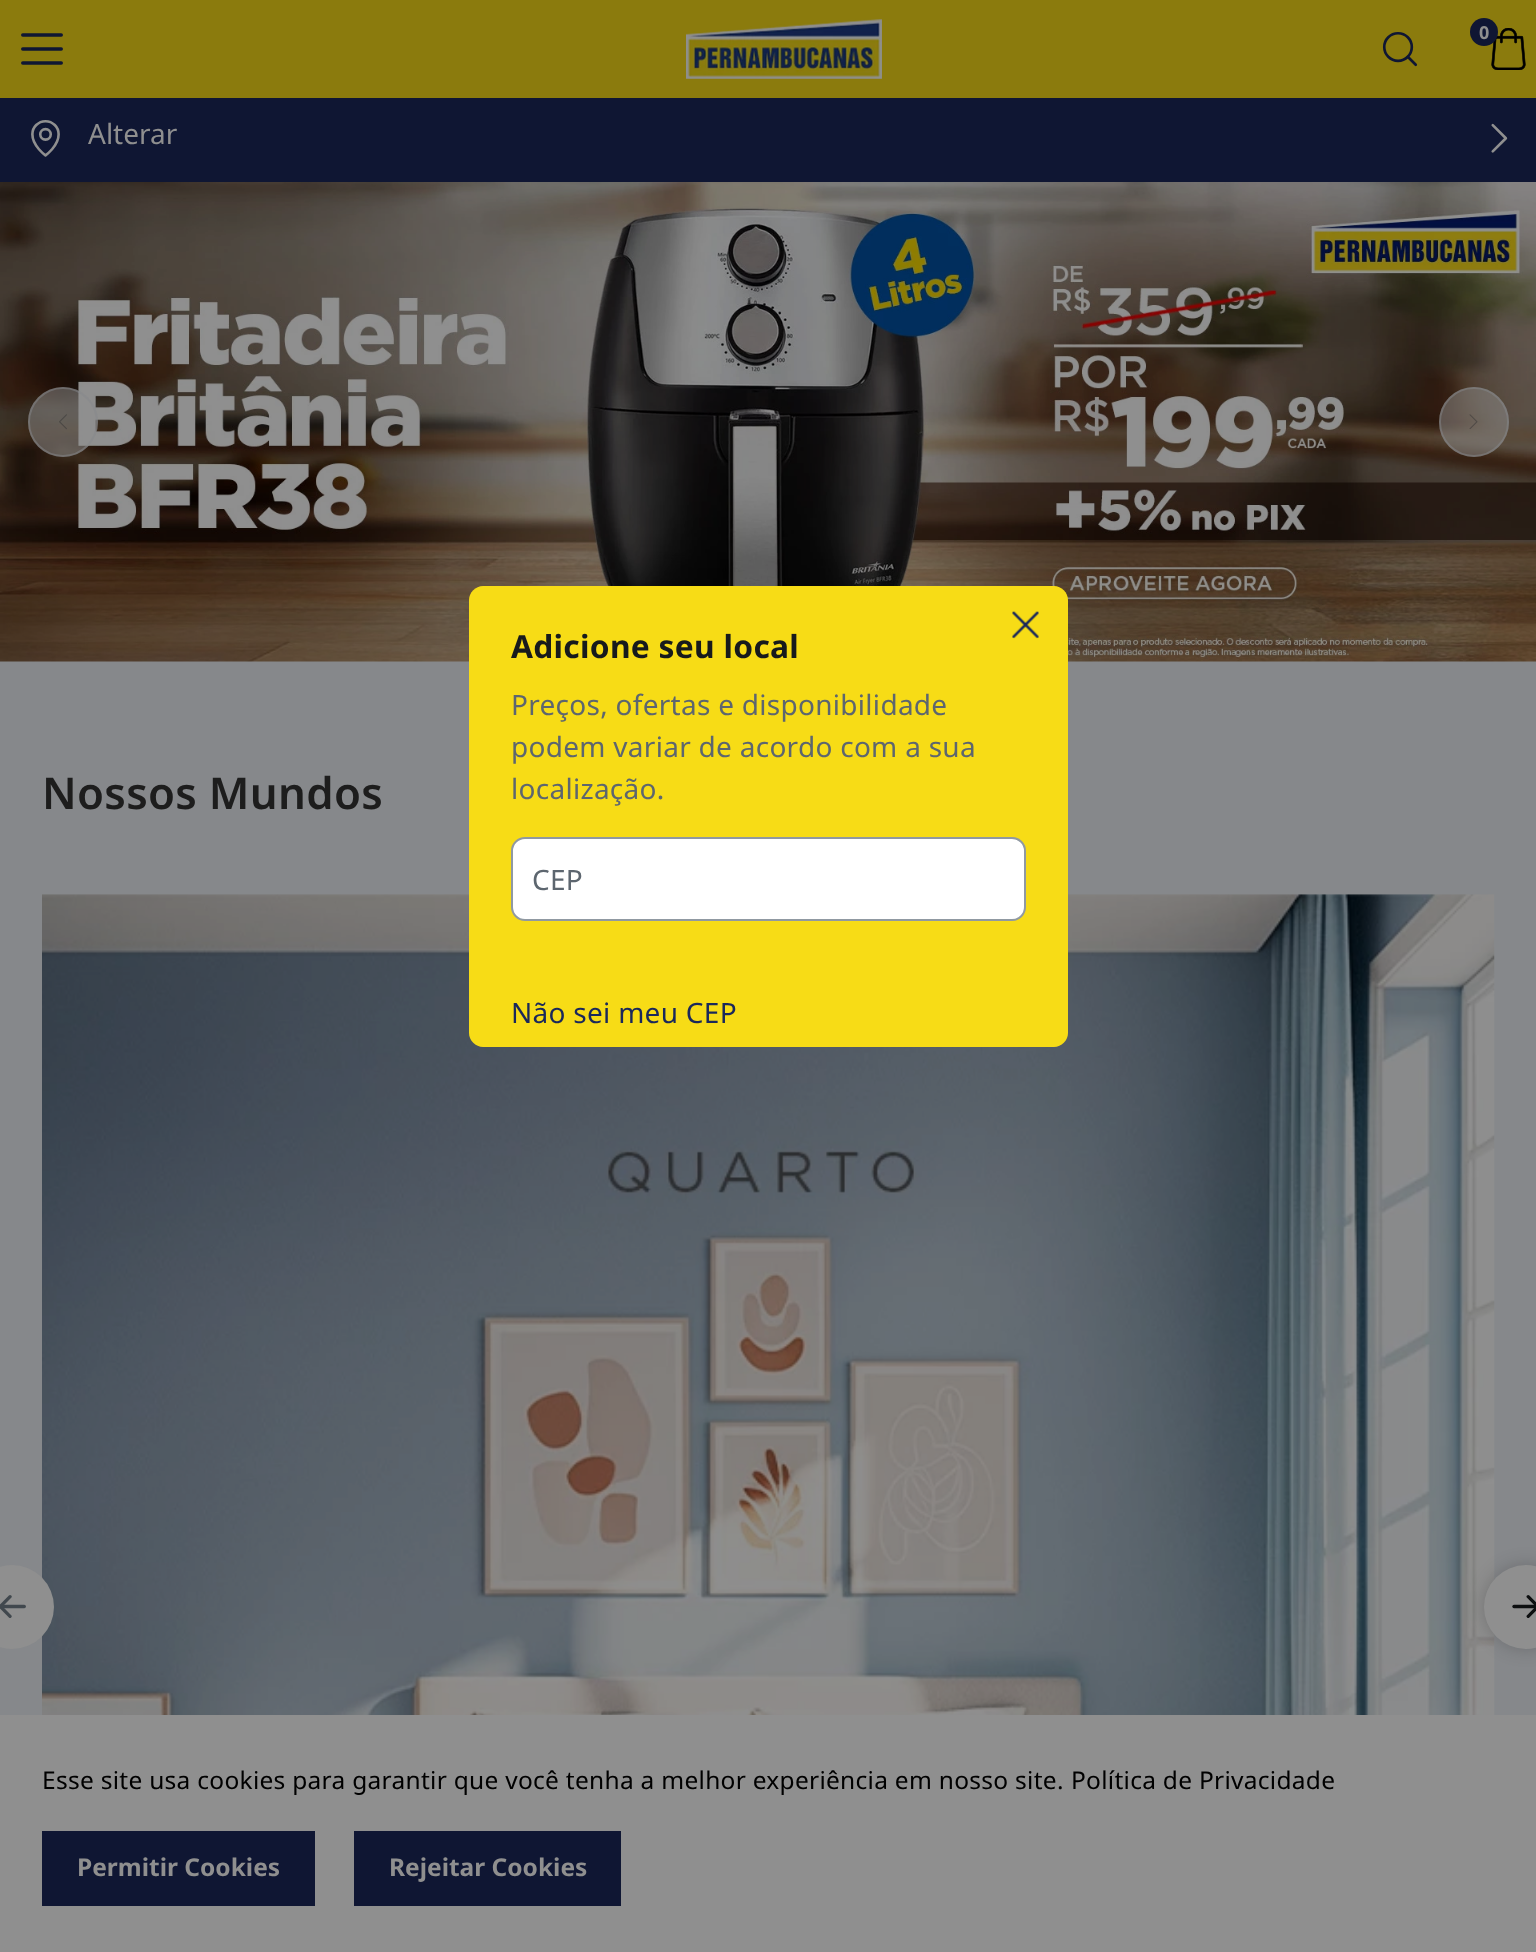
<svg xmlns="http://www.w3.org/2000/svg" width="1536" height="1952">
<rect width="100%" height="100%" fill="#86888b"/>
<rect width="1536" height="98" fill="#8b7b0d"/>
<image x="21" y="33" width="42" height="32" href="media/1.png"/>
<image x="686" y="19" width="196" height="60" href="media/2.png"/>
<image x="1382" y="32" width="36" height="35" href="media/3.png"/>
<image x="1491" y="28" width="35" height="42" href="media/4.png"/>
<circle cx="1484" cy="32" r="14" fill="#0f1633"/>
<text x="1479" y="39" style="font-family:Noto Sans;font-size:18px;font-weight:bold;fill:#8f8f8f">0</text>
<rect y="98" width="1536" height="84" fill="#0f1633"/>
<image x="31" y="120" width="29" height="37" href="media/5.png"/>
<text x="88" y="144" style="font-family:Noto Sans;font-size:28px;fill:#8f8f8f">Alterar</text>
<image x="1491" y="123" width="17" height="30" href="media/6.png"/>
<image x="0" y="182" width="1536" height="480" href="media/7.png"/>
<circle cx="63" cy="422" r="35" fill="#8f8f8f80"/>
<circle cx="63" cy="422" r="34" fill="none" stroke="#86888b80" stroke-width="2"/>
<image x="59" y="414" width="8" height="16" href="media/8.png"/>
<circle cx="1474" cy="422" r="35" fill="#8f8f8f80"/>
<circle cx="1474" cy="422" r="34" fill="none" stroke="#86888b80" stroke-width="2"/>
<image x="1469" y="414" width="9" height="15" href="media/9.png"/>
<text x="42" y="809" style="font-family:Noto Sans;font-size:43.75px;font-weight:600;letter-spacing:0.3px;fill:#1d1d1d">Nossos Mundos</text>
<image x="42" y="894" width="1453" height="821" href="media/10.png"/>
<circle cx="12" cy="1607" r="42" fill="#8f8f8f"/>
<image x="0" y="1595" width="26" height="23" href="media/11.png"/>
<rect x="1484" y="1565" width="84" height="84" rx="42" fill="#00000033" filter="blur(9px)"/>
<circle cx="1526" cy="1607" r="42" fill="#8f8f8f"/>
<image x="1512" y="1595" width="24" height="23" href="media/12.png"/>
<rect y="1715" width="1536" height="237" fill="#8f8f8f"/>
<text x="42" y="1789" style="font-family:Noto Sans;font-size:24.5px;letter-spacing:0.28px;fill:#000">Esse site usa cookies para garantir que você tenha a melhor experiência em nosso site.</text>
<text x="1071" y="1789" style="font-family:Noto Sans;font-size:24.5px;letter-spacing:0.28px;fill:#000">Política de Privacidade</text>
<rect x="42" y="1831" width="273" height="75" fill="#0f1633"/>
<text x="77" y="1876" style="font-family:Noto Sans;font-size:24.5px;font-weight:bold;fill:#8f8f8f">Permitir Cookies</text>
<rect x="354" y="1831" width="267" height="75" fill="#0f1633"/>
<text x="389" y="1876" style="font-family:Noto Sans;font-size:24.5px;font-weight:bold;fill:#8f8f8f">Rejeitar Cookies</text>
<path d="M483 586h571c7.5 0 14 6.5 14 14v223h-599v-223c0-7.5 6.5-14 14-14z" fill="#f7dc16"/>
<image x="1012" y="611" width="27" height="28" href="media/13.png"/>
<text x="511" y="658" style="font-family:Noto Sans;font-size:31.75px;font-weight:bold;letter-spacing:0.28px;fill:#171a1c">Adicione seu local</text>
<text x="511" y="715" style="font-family:Noto Sans;font-size:28px;letter-spacing:0.28px;fill:#5d666f">Preços, ofertas e disponibilidade</text>
<text x="511" y="757" style="font-family:Noto Sans;font-size:28px;letter-spacing:0.28px;fill:#5d666f">podem variar de acordo com a sua</text>
<text x="511" y="799" style="font-family:Noto Sans;font-size:28px;letter-spacing:0.28px;fill:#5d666f">localização.</text>
<path d="M469 823h599v210c0 7.5-6.5 14-14 14h-571c-7.5 0-14-6.5-14-14z" fill="#f7dc16"/>
<rect x="512" y="838" width="513" height="82" rx="13" fill="#fff" stroke="#9099a2" stroke-width="2"/>
<text x="532" y="890" style="font-family:Noto Sans;font-size:28px;letter-spacing:0.28px;fill:#5d666f">CEP</text>
<text x="511" y="1023" style="font-family:Noto Sans;font-size:28px;letter-spacing:0.28px;fill:#1a285b">Não sei meu CEP</text>
</svg>
